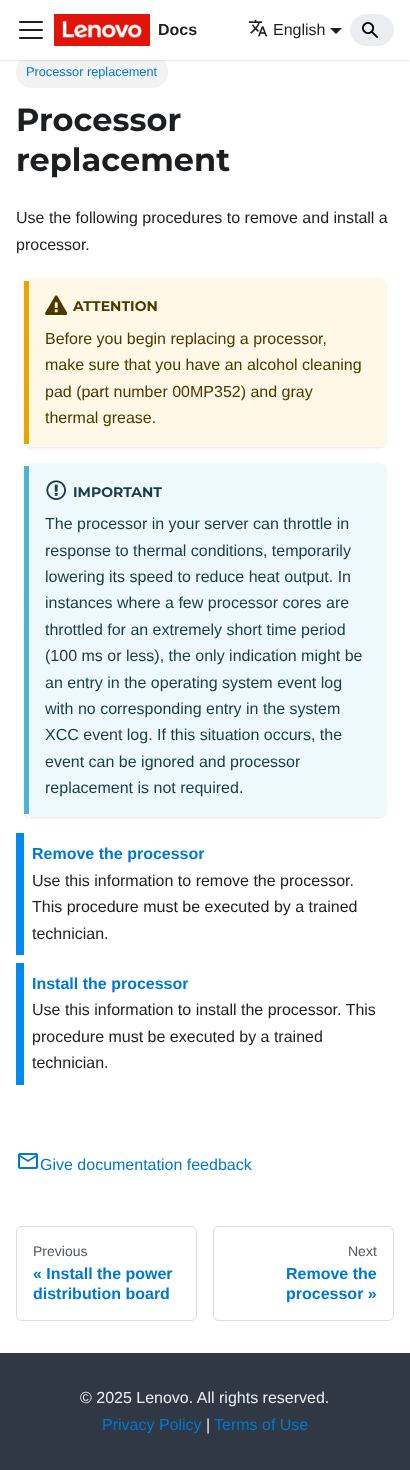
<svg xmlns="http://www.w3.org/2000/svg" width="410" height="1470">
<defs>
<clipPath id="clip1"><path d="M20 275h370v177h-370zm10 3h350c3.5 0 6 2.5 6 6v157c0 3.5-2.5 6-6 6h-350c-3.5 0-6-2.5-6-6v-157c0-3.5 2.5-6 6-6z" clip-rule="evenodd"/></clipPath>
<clipPath id="clip2"><path d="M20 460h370v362h-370zm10 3h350c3.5 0 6 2.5 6 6v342c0 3.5-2.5 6-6 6h-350c-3.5 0-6-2.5-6-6v-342c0-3.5 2.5-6 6-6z" clip-rule="evenodd"/></clipPath>
</defs>
<rect width="100%" height="100%" fill="#fff"/>
<rect x="16" y="56" width="152" height="32" rx="16" fill="#f2f2f2"/>
<rect y="1" width="410" height="60" fill="#0000001a" filter="blur(1px)"/>
<rect width="410" height="60" fill="#fff"/>
<image x="19" y="21" width="24" height="18" href="media/1.png"/>
<image x="54" y="14" width="96" height="32" href="media/2.png"/>
<text x="158" y="35" style="font-family:Liberation Sans;font-size:16px;font-weight:bold;fill:#1c1e21">Docs</text>
<image x="248" y="19" width="20" height="18" href="media/3.png"/>
<text x="273" y="35" style="font-family:Liberation Sans;font-size:16px;fill:#1c1e21">English</text>
<path d="M330 28h12l-6 6z" fill="#1c1e21"/>
<rect x="350" y="14" width="44" height="32" rx="16" fill="#ebedf0"/>
<image x="362" y="22" width="16" height="16" href="media/4.png"/>
<text x="26" y="76" style="font-family:Liberation Sans;font-size:12.75px;fill:#0078d0">Processor replacement</text>
<text x="16" y="131" style="font-family:Montserrat;font-size:32px;font-weight:bold;fill:#1c1e21">Processor</text>
<text x="16" y="171" style="font-family:Montserrat;font-size:32px;font-weight:bold;fill:#1c1e21">replacement</text>
<text x="16" y="223" style="font-family:Liberation Sans;font-size:16px;fill:#1c1e21">Use the following procedures to remove and install a</text>
<text x="16" y="250" style="font-family:Liberation Sans;font-size:16px;fill:#1c1e21">processor.</text>
<g clip-path="url(#clip1)">
<rect x="24" y="279" width="362" height="169" rx="6" fill="#0000001a" filter="blur(1px)"/>
</g>
<path d="M30 278h350c3 0 6 3 6 6v157c0 3-3 6-6 6h-350c0 0-1-3-1-6v-157c0-3 1-6 1-6z" fill="#fff8e6"/>
<rect x="24" y="281" width="5" height="163" fill="#e6a700"/>
<image x="45" y="295" width="22" height="20" href="media/5.png"/>
<text x="73" y="311" style="font-family:Montserrat;font-size:14px;font-weight:bold;fill:#4d3800">ATTENTION</text>
<text x="45" y="344" style="font-family:Liberation Sans;font-size:16px;fill:#4d3800">Before you begin replacing a processor,</text>
<text x="45" y="370" style="font-family:Liberation Sans;font-size:16px;fill:#4d3800">make sure that you have an alcohol cleaning</text>
<text x="45" y="397" style="font-family:Liberation Sans;font-size:16px;fill:#4d3800">pad (part number 00MP352) and gray</text>
<text x="45" y="423" style="font-family:Liberation Sans;font-size:16px;fill:#4d3800">thermal grease.</text>
<g clip-path="url(#clip2)">
<rect x="24" y="464" width="362" height="354" rx="6" fill="#0000001a" filter="blur(1px)"/>
</g>
<path d="M30 463h350c3 0 6 3 6 6v342c0 3-3 6-6 6h-350c0 0-1-3-1-6v-342c0-3 1-6 1-6z" fill="#eef9fd"/>
<rect x="24" y="466" width="5" height="348" fill="#4cb3d4"/>
<image x="46" y="480" width="20" height="20" href="media/6.png"/>
<text x="73" y="497" style="font-family:Montserrat;font-size:14px;font-weight:bold;fill:#193c47">IMPORTANT</text>
<text x="45" y="529" style="font-family:Liberation Sans;font-size:16px;fill:#193c47">The processor in your server can throttle in</text>
<text x="45" y="556" style="font-family:Liberation Sans;font-size:16px;fill:#193c47">response to thermal conditions, temporarily</text>
<text x="45" y="582" style="font-family:Liberation Sans;font-size:16px;fill:#193c47">lowering its speed to reduce heat output. In</text>
<text x="45" y="608" style="font-family:Liberation Sans;font-size:16px;fill:#193c47">instances where a few processor cores are</text>
<text x="45" y="635" style="font-family:Liberation Sans;font-size:16px;fill:#193c47">throttled for an extremely short time period</text>
<text x="45" y="661" style="font-family:Liberation Sans;font-size:16px;fill:#193c47">(100 ms or less), the only indication might be</text>
<text x="45" y="688" style="font-family:Liberation Sans;font-size:16px;fill:#193c47">an entry in the operating system event log</text>
<text x="45" y="714" style="font-family:Liberation Sans;font-size:16px;fill:#193c47">with no corresponding entry in the system</text>
<text x="45" y="740" style="font-family:Liberation Sans;font-size:16px;fill:#193c47">XCC event log. If this situation occurs, the</text>
<text x="45" y="767" style="font-family:Liberation Sans;font-size:16px;fill:#193c47">event can be ignored and processor</text>
<text x="45" y="793" style="font-family:Liberation Sans;font-size:16px;fill:#193c47">replacement is not required.</text>
<rect x="16" y="833" width="8" height="122" fill="#008aef"/>
<text x="32" y="859" style="font-family:Liberation Sans;font-size:16px;font-weight:bold;fill:#0078d0">Remove the processor</text>
<text x="32" y="886" style="font-family:Liberation Sans;font-size:16px;fill:#1c1e21">Use this information to remove the processor.</text>
<text x="32" y="912" style="font-family:Liberation Sans;font-size:16px;fill:#1c1e21">This procedure must be executed by a trained</text>
<text x="32" y="939" style="font-family:Liberation Sans;font-size:16px;fill:#1c1e21">technician.</text>
<rect x="16" y="963" width="8" height="122" fill="#008aef"/>
<text x="32" y="989" style="font-family:Liberation Sans;font-size:16px;font-weight:bold;fill:#0078d0">Install the processor</text>
<text x="32" y="1015" style="font-family:Liberation Sans;font-size:16px;fill:#1c1e21">Use this information to install the processor. This</text>
<text x="32" y="1042" style="font-family:Liberation Sans;font-size:16px;fill:#1c1e21">procedure must be executed by a trained</text>
<text x="32" y="1068" style="font-family:Liberation Sans;font-size:16px;fill:#1c1e21">technician.</text>
<image x="18" y="1153" width="20" height="16" href="media/7.png"/>
<text x="40" y="1170" style="font-family:Liberation Sans;font-size:16px;fill:#0078d0">Give documentation feedback</text>
<rect x="16.5" y="1226.5" width="180" height="94" rx="5.5" fill="none" stroke="#dadde1"/>
<text x="33" y="1256" style="font-family:Liberation Sans;font-size:14px;fill:#525860">Previous</text>
<text x="33" y="1279" style="font-family:Liberation Sans;font-size:16px;font-weight:bold;fill:#0078d0">« Install the power</text>
<text x="33" y="1299" style="font-family:Liberation Sans;font-size:16px;font-weight:bold;fill:#0078d0">distribution board</text>
<rect x="213.5" y="1226.5" width="180" height="94" rx="5.5" fill="none" stroke="#dadde1"/>
<text x="348" y="1256" style="font-family:Liberation Sans;font-size:14px;fill:#525860">Next</text>
<text x="286" y="1279" style="font-family:Liberation Sans;font-size:16px;font-weight:bold;fill:#0078d0">Remove the</text>
<text x="286" y="1299" style="font-family:Liberation Sans;font-size:16px;font-weight:bold;fill:#0078d0">processor »</text>
<rect y="1353" width="410" height="117" fill="#303846"/>
<text x="80" y="1403" style="font-family:Liberation Sans;font-size:16px;fill:#ebedf0">© 2025 Lenovo. All rights reserved.</text>
<text x="102" y="1430" style="font-family:Liberation Sans;font-size:16px;fill:#0078d0">Privacy Policy</text>
<text x="206" y="1430" style="font-family:Liberation Sans;font-size:16px;fill:#ebedf0">|</text>
<text x="214" y="1430" style="font-family:Liberation Sans;font-size:16px;fill:#0078d0">Terms of Use</text>
</svg>
